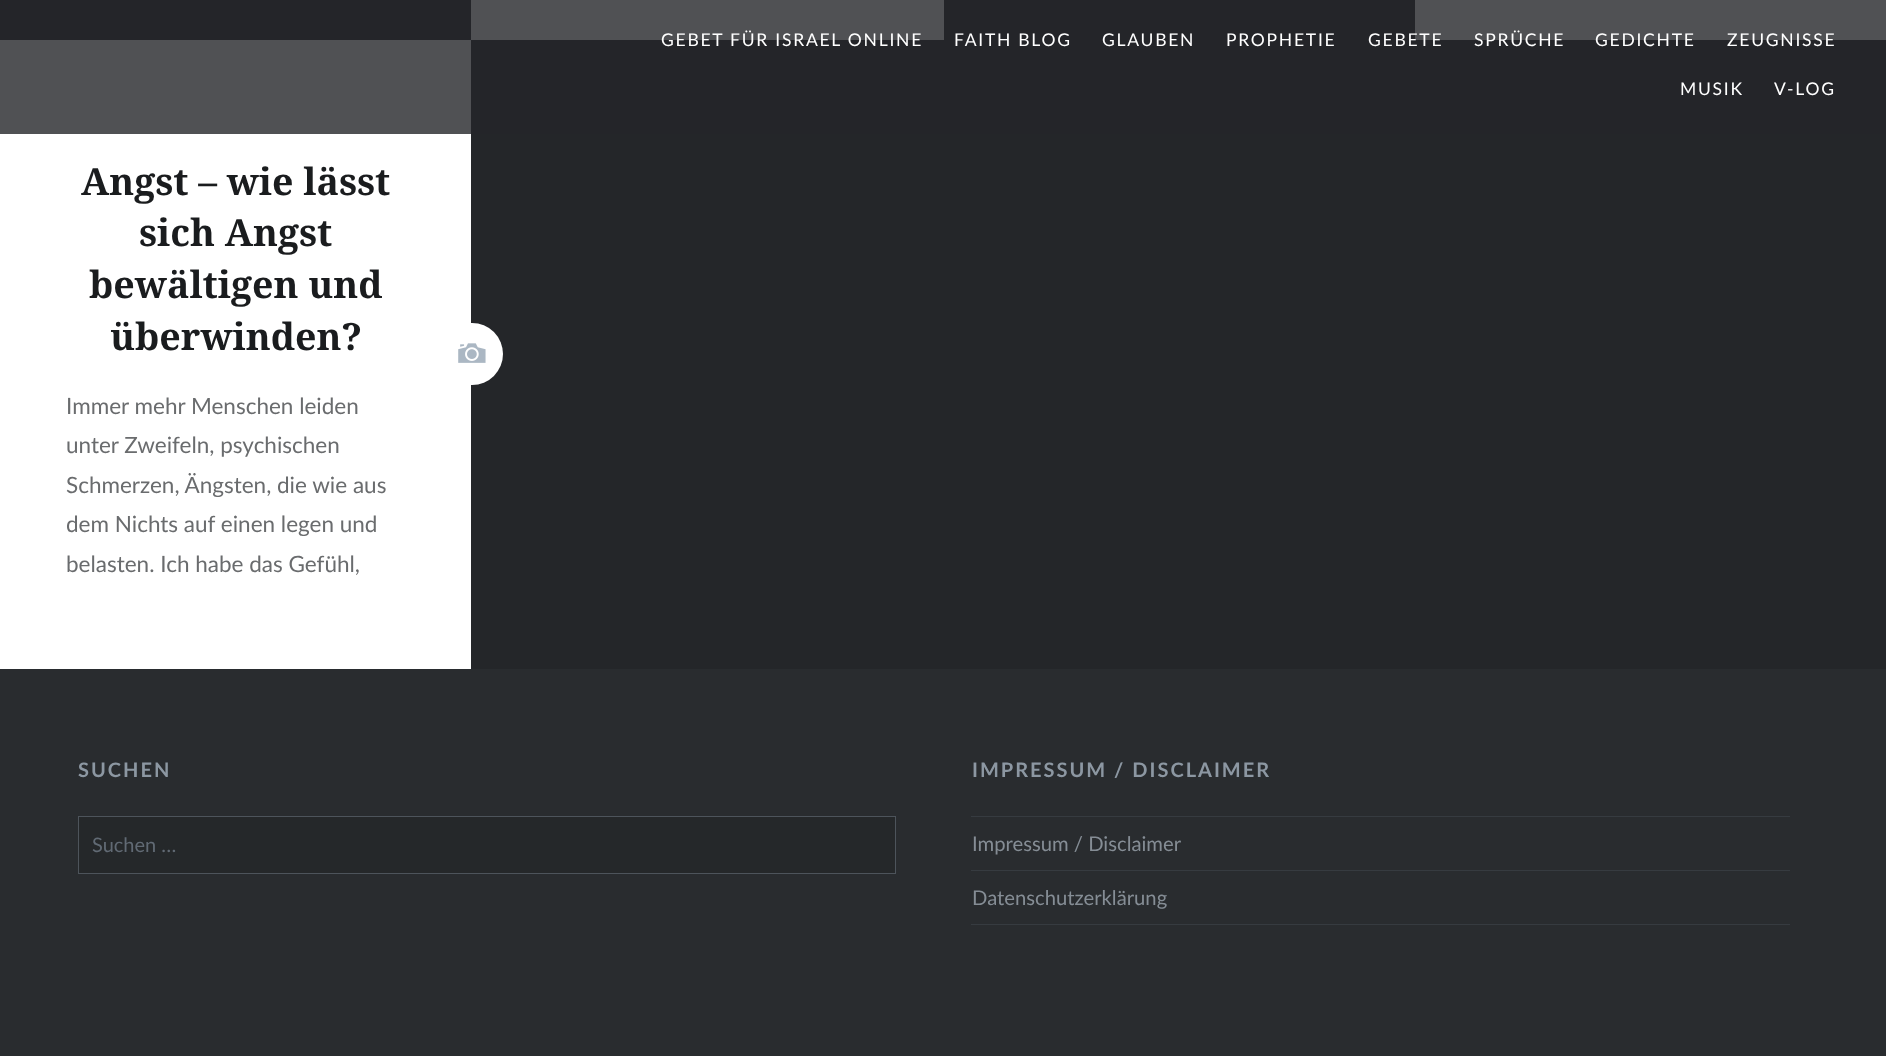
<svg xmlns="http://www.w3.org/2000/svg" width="1886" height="1056">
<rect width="100%" height="100%" fill="#242629"/>
<rect x="471" width="473" height="40" fill="#fff"/>
<rect x="1415" width="471" height="40" fill="#fff"/>
<rect y="40" width="471" height="629" fill="#fff"/>
<rect width="1886" height="134" fill="#242629cc"/>
<text x="661" y="46" style="font-family:Lato;font-size:17.5px;letter-spacing:1.75px;fill:#fff">GEBET FÜR ISRAEL ONLINE</text>
<text x="954" y="46" style="font-family:Lato;font-size:17.5px;letter-spacing:1.75px;fill:#fff">FAITH BLOG</text>
<text x="1102" y="46" style="font-family:Lato;font-size:17.5px;letter-spacing:1.75px;fill:#fff">GLAUBEN</text>
<text x="1226" y="46" style="font-family:Lato;font-size:17.5px;letter-spacing:1.75px;fill:#fff">PROPHETIE</text>
<text x="1368" y="46" style="font-family:Lato;font-size:17.5px;letter-spacing:1.75px;fill:#fff">GEBETE</text>
<text x="1474" y="46" style="font-family:Lato;font-size:17.5px;letter-spacing:1.75px;fill:#fff">SPRÜCHE</text>
<text x="1595" y="46" style="font-family:Lato;font-size:17.5px;letter-spacing:1.75px;fill:#fff">GEDICHTE</text>
<text x="1727" y="46" style="font-family:Lato;font-size:17.5px;letter-spacing:1.75px;fill:#fff">ZEUGNISSE</text>
<text x="1680" y="95" style="font-family:Lato;font-size:17.5px;letter-spacing:1.75px;fill:#fff">MUSIK</text>
<text x="1774" y="95" style="font-family:Lato;font-size:17.5px;letter-spacing:1.75px;fill:#fff">V-LOG</text>
<text x="81" y="195" style="font-family:Noto Serif;font-size:37.5px;font-weight:bold;fill:#1a1c1e">Angst – wie lässt</text>
<text x="139" y="246" style="font-family:Noto Serif;font-size:37.5px;font-weight:bold;fill:#1a1c1e">sich Angst</text>
<text x="89" y="298" style="font-family:Noto Serif;font-size:37.5px;font-weight:bold;fill:#1a1c1e">bewältigen und</text>
<text x="110" y="350" style="font-family:Noto Serif;font-size:37.5px;font-weight:bold;fill:#1a1c1e">überwinden?</text>
<text x="66" y="414" style="font-family:Lato;font-size:22.5px;fill:#6a6c6e"> Immer mehr Menschen leiden</text>
<text x="66" y="453" style="font-family:Lato;font-size:22.5px;fill:#6a6c6e">unter Zweifeln, psychischen</text>
<text x="66" y="493" style="font-family:Lato;font-size:22.5px;fill:#6a6c6e">Schmerzen, Ängsten, die wie aus</text>
<text x="66" y="532" style="font-family:Lato;font-size:22.5px;fill:#6a6c6e">dem Nichts auf einen legen und</text>
<text x="66" y="572" style="font-family:Lato;font-size:22.5px;fill:#6a6c6e">belasten. Ich habe das Gefühl,</text>
<rect x="440" y="323" width="63" height="62" rx="31" fill="#fff"/>
<image x="458" y="343" width="28" height="20" href="media/1.png"/>
<rect y="669" width="1886" height="387" fill="#292c2f"/>
<text x="78" y="777" style="font-family:Lato;font-size:20px;font-weight:bold;letter-spacing:2px;fill:#8c97a2">SUCHEN</text>
<rect x="78.5" y="816.5" width="817" height="57" fill="#25282a" stroke="#4d545b"/>
<text x="92" y="852" style="font-family:Lato;font-size:20px;fill:#616a74">Suchen …</text>
<text x="972" y="777" style="font-family:Lato;font-size:20px;font-weight:bold;letter-spacing:2px;fill:#8c97a2">IMPRESSUM / DISCLAIMER</text>
<rect x="971" y="816" width="819" height="1" fill="#363b40"/>
<rect x="971" y="870" width="819" height="1" fill="#363b40"/>
<text x="972" y="851" style="font-family:Lato;font-size:20.25px;fill:#858d95">Impressum / Disclaimer</text>
<rect x="971" y="924" width="819" height="1" fill="#363b40"/>
<text x="972" y="905" style="font-family:Lato;font-size:20.25px;fill:#858d95">Datenschutzerklärung</text>
</svg>
